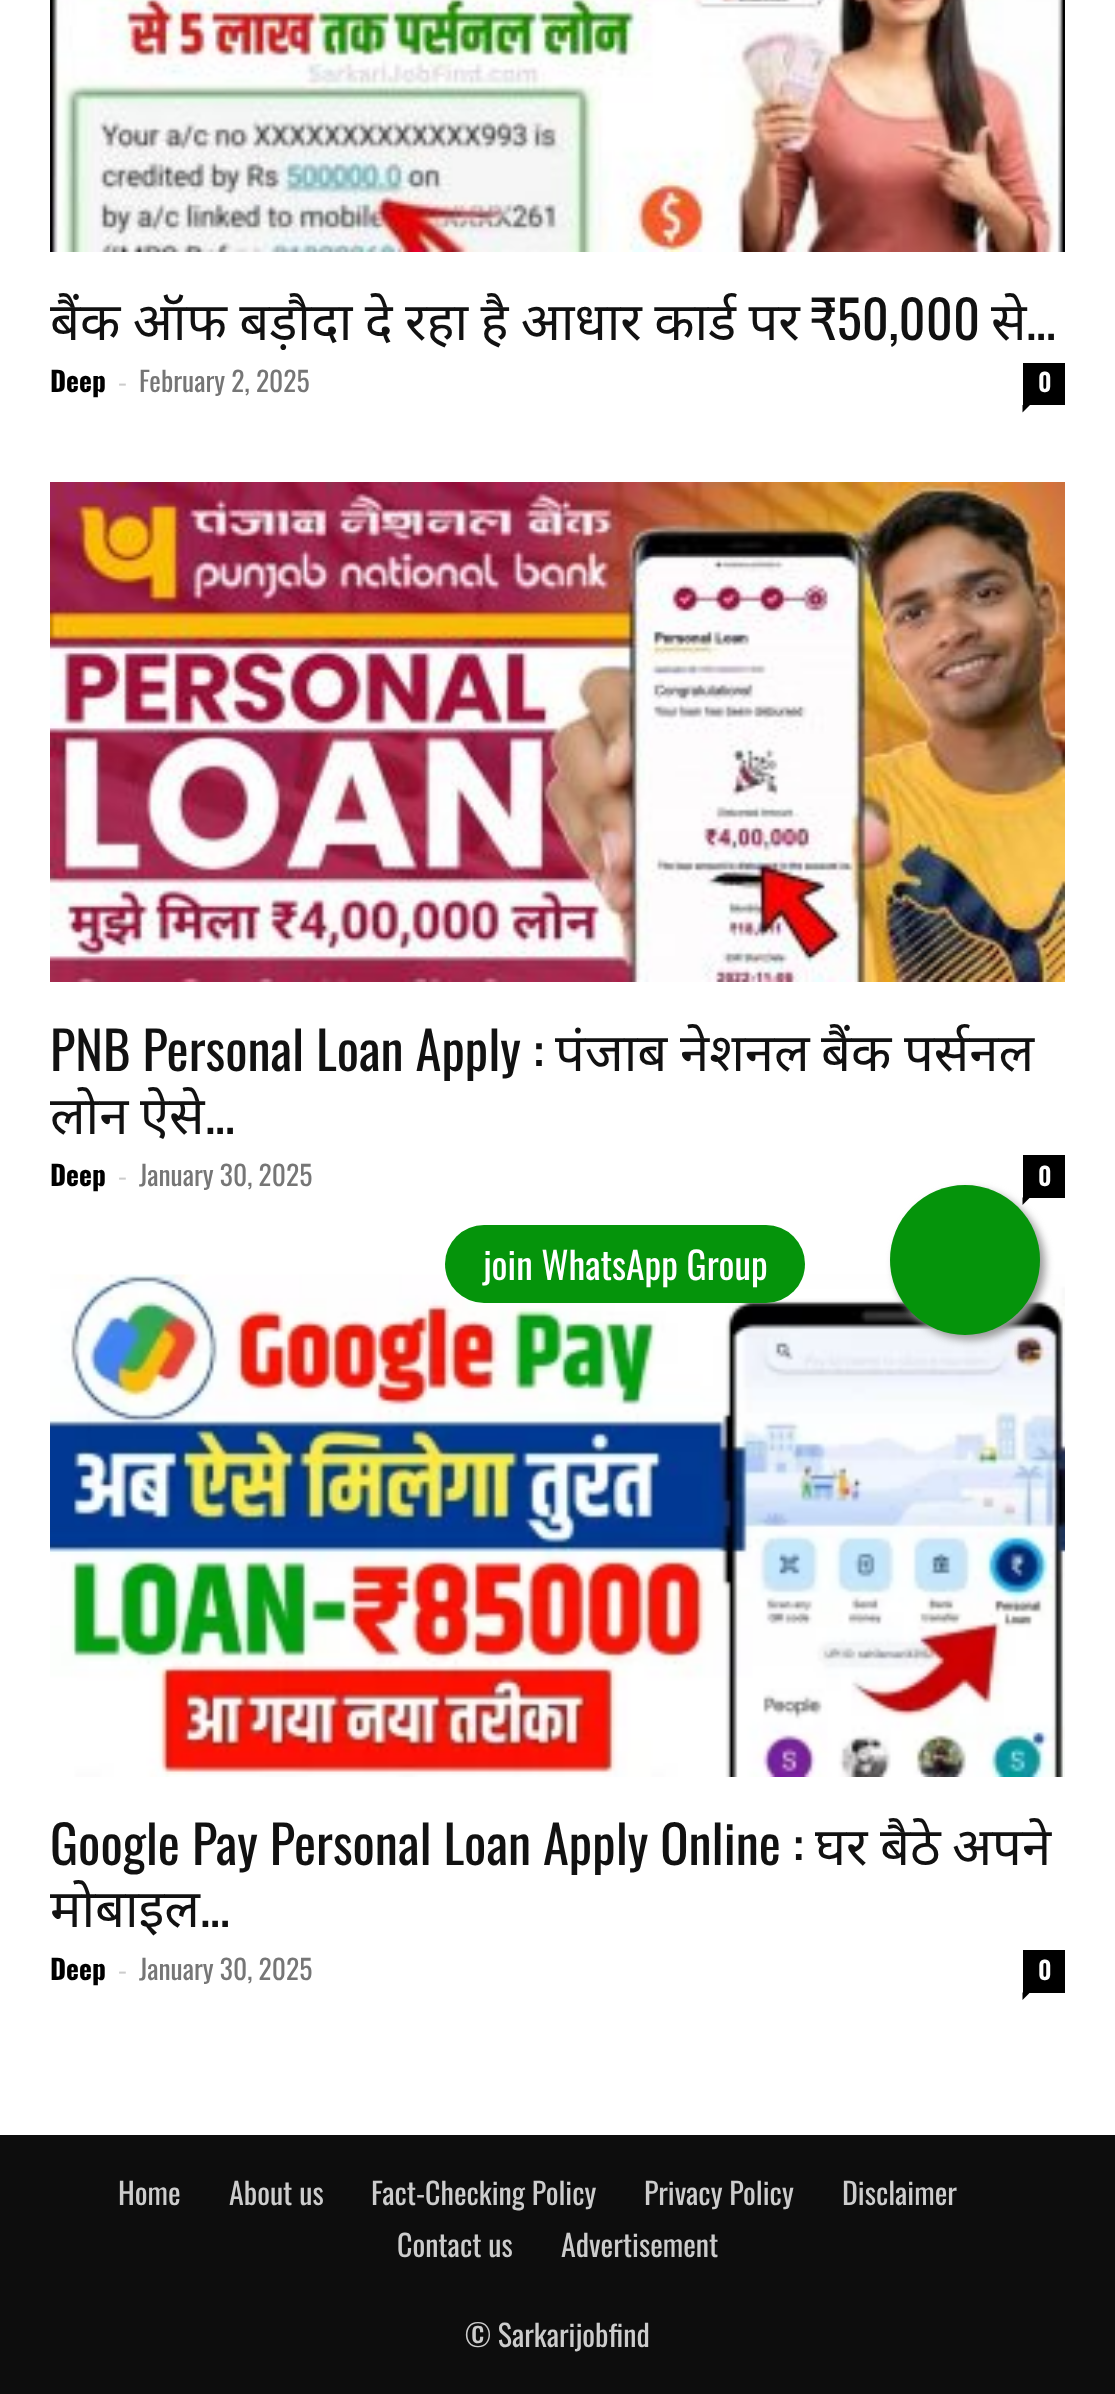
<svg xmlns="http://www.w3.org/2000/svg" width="1115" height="2394">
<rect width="100%" height="100%" fill="#fff"/>
<image x="50" y="0" width="1015" height="252" href="media/1.png"/>
<text x="50" y="340" word-spacing="-1.25" style="font-family:Noto Sans;font-size:52.5px;fill:#111">बैंक ऑफ बड़ौदा दे रहा है आधार कार्ड पर</text>
<text x="810" y="340" style="font-family:Oswald;font-size:52.5px;fill:#111">₹50,000</text>
<text x="991" y="340" style="font-family:Noto Sans;font-size:52.5px;fill:#111">से</text>
<text x="1026" y="340" style="font-family:Oswald;font-size:52.5px;fill:#111">...</text>
<text x="50" y="392" style="font-family:Oswald;font-size:27.5px;font-weight:bold;fill:#000">Deep</text>
<text x="118" y="392" style="font-family:Open Sans;font-size:27.5px;fill:#ccc">-</text>
<text x="139" y="392" style="font-family:Oswald;font-size:27.5px;fill:#767676">February 2, 2025</text>
<rect x="1023" y="363" width="42" height="42" fill="#000"/>
<text x="1038" y="392" style="font-family:Oswald;font-size:25px;font-weight:600;fill:#fff">0</text>
<path d="M1022.5 405h7.5l-7.5 7.5z" fill="#000"/>
<image x="50" y="482" width="1015" height="500" href="media/2.png"/>
<text x="50" y="1071" style="font-family:Oswald;font-size:52.5px;fill:#111">PNB Personal Loan Apply :</text>
<text x="555" y="1071" style="font-family:Noto Sans;font-size:52.5px;fill:#111">पंजाब</text>
<text x="680" y="1071" style="font-family:Noto Sans;font-size:52.5px;fill:#111">नेशनल</text>
<text x="821" y="1071" style="font-family:Noto Sans;font-size:52.5px;fill:#111">बैंक</text>
<text x="904" y="1071" style="font-family:Noto Sans;font-size:52.5px;fill:#111">पर्सनल</text>
<text x="50" y="1134" word-spacing="-2" style="font-family:Noto Sans;font-size:52.5px;fill:#111">लोन ऐसे</text>
<text x="205" y="1134" style="font-family:Oswald;font-size:52.5px;fill:#111">...</text>
<text x="50" y="1186" style="font-family:Oswald;font-size:27.5px;font-weight:bold;fill:#000">Deep</text>
<text x="118" y="1186" style="font-family:Open Sans;font-size:27.5px;fill:#ccc">-</text>
<text x="139" y="1186" style="font-family:Oswald;font-size:27.5px;fill:#767676">January 30, 2025</text>
<rect x="1023" y="1155" width="42" height="43" fill="#000"/>
<text x="1038" y="1186" style="font-family:Oswald;font-size:25px;font-weight:600;fill:#fff">0</text>
<path d="M1022.5 1197.5h7.5l-7.5 7.5z" fill="#000"/>
<image x="50" y="1274" width="1015" height="503" href="media/3.png"/>
<text x="50" y="1865" style="font-family:Oswald;font-size:52.5px;fill:#111">Google Pay Personal Loan Apply Online :</text>
<text x="815" y="1865" style="font-family:Noto Sans;font-size:52.5px;fill:#111">घर</text>
<text x="880" y="1865" style="font-family:Noto Sans;font-size:52.5px;fill:#111">बैठे</text>
<text x="952" y="1865" style="font-family:Noto Sans;font-size:52.5px;fill:#111">अपने</text>
<text x="50" y="1927" style="font-family:Noto Sans;font-size:52.5px;fill:#111">मोबाइल</text>
<text x="200" y="1927" style="font-family:Oswald;font-size:52.5px;fill:#111">...</text>
<text x="50" y="1980" style="font-family:Oswald;font-size:27.5px;font-weight:bold;fill:#000">Deep</text>
<text x="118" y="1980" style="font-family:Open Sans;font-size:27.5px;fill:#ccc">-</text>
<text x="139" y="1980" style="font-family:Oswald;font-size:27.5px;fill:#767676">January 30, 2025</text>
<rect x="1023" y="1950" width="42" height="43" fill="#000"/>
<text x="1038" y="1980" style="font-family:Oswald;font-size:25px;font-weight:600;fill:#fff">0</text>
<path d="M1022.5 1992.5h7.5l-7.5 7.5z" fill="#000"/>
<rect y="2135" width="1115" height="259" fill="#0d0d0d"/>
<text x="118" y="2205" style="font-family:Oswald;font-size:30px;fill:#ccc">Home</text>
<text x="229" y="2205" style="font-family:Oswald;font-size:30px;fill:#ccc">About us</text>
<text x="371" y="2205" style="font-family:Oswald;font-size:30px;fill:#ccc">Fact-Checking Policy</text>
<text x="644" y="2205" style="font-family:Oswald;font-size:30px;fill:#ccc">Privacy Policy</text>
<text x="842" y="2205" style="font-family:Oswald;font-size:30px;fill:#ccc">Disclaimer</text>
<text x="397" y="2257" style="font-family:Oswald;font-size:30px;fill:#ccc">Contact us</text>
<text x="561" y="2257" style="font-family:Oswald;font-size:30px;fill:#ccc">Advertisement</text>
<text x="465" y="2347" style="font-family:Oswald;font-size:30px;fill:#ccc">© Sarkarijobfind</text>
<rect x="895" y="1190" width="150" height="150" rx="75" fill="#999" filter="blur(4px)"/>
<circle cx="965" cy="1260" r="75" fill="#05940b"/>
<rect x="445" y="1225" width="360" height="78" rx="39" fill="#05940b"/>
<text x="483" y="1280" style="font-family:Oswald;font-size:37.5px;fill:#fff">join WhatsApp Group</text>
</svg>
